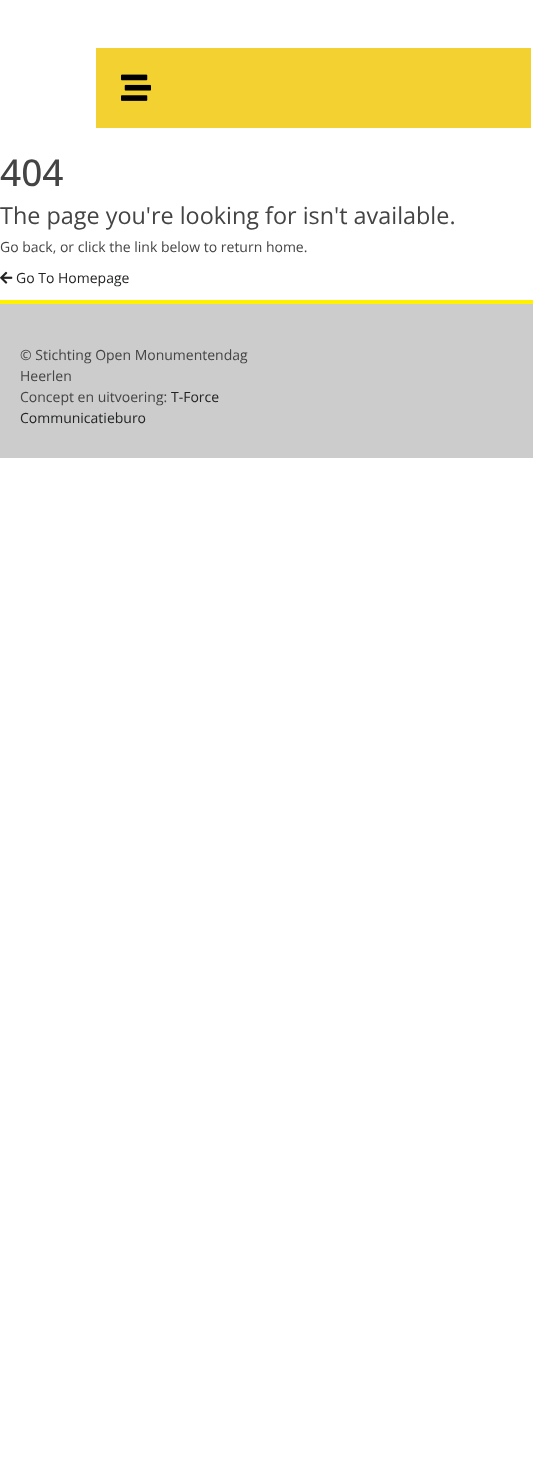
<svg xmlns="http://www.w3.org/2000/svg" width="533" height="1477">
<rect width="100%" height="100%" fill="#fff"/>
<rect x="96" y="48" width="435" height="80" fill="#f3d131"/>
<image x="121" y="74" width="30" height="27" href="media/1.png"/>
<text x="0" y="186" style="font-family:Open Sans;font-size:37px;font-weight:500;fill:#444">404</text>
<text x="0" y="224" style="font-family:Open Sans;font-size:23.4px;fill:#444">The page you're looking for isn't available.</text>
<text x="0" y="252" style="font-family:Open Sans;font-size:14px;fill:#444">Go back, or click the link below to return home.</text>
<image x="0" y="271" width="13" height="13" href="media/2.png"/>
<text x="16" y="283" style="font-family:Open Sans;font-size:14px;fill:#222324">Go To Homepage</text>
<rect y="304" width="533" height="154" fill="#ccc"/>
<rect y="300" width="533" height="4" fill="#fff100"/>
<text x="20" y="360" style="font-family:Open Sans;font-size:14px;fill:#444">© Stichting Open Monumentendag</text>
<text x="20" y="381" style="font-family:Open Sans;font-size:14px;fill:#444">Heerlen</text>
<text x="20" y="402" style="font-family:Open Sans;font-size:14px;fill:#444">Concept en uitvoering:</text>
<text x="171" y="402" style="font-family:Open Sans;font-size:14px;fill:#222324">T-Force</text>
<text x="20" y="423" style="font-family:Open Sans;font-size:14px;fill:#222324">Communicatieburo</text>
</svg>
